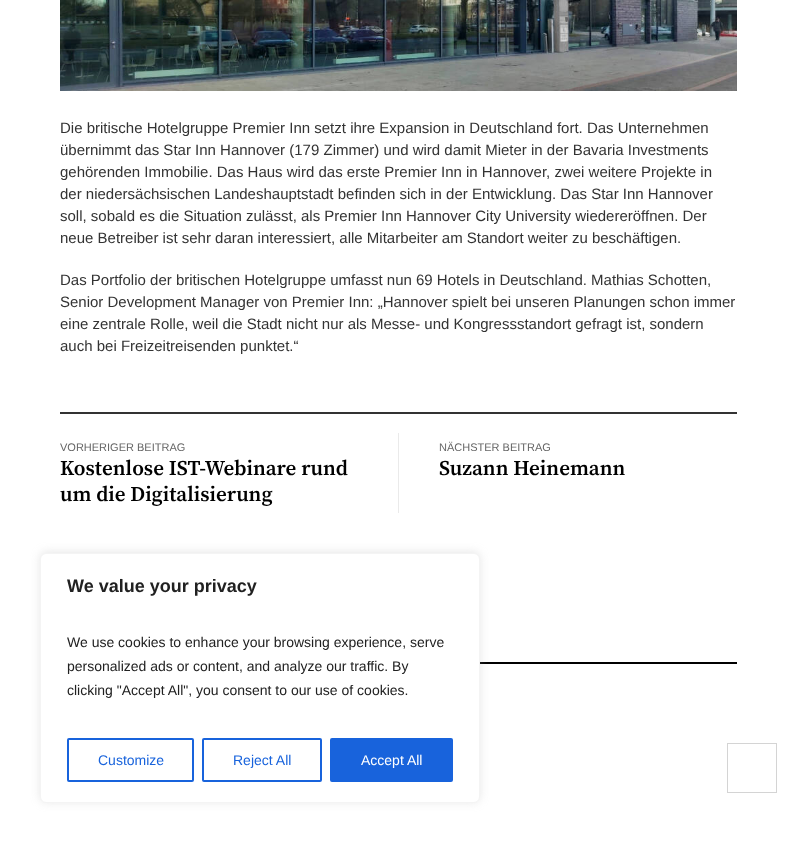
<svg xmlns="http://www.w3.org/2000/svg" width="797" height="843">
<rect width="100%" height="100%" fill="#fff"/>
<image x="60" y="0" width="677" height="91" href="media/1.png"/>
<text x="60" y="133" style="font-family:Liberation Sans;font-size:15px;fill:#333">Die britische Hotelgruppe Premier Inn setzt ihre Expansion in Deutschland fort. Das Unternehmen</text>
<text x="60" y="155" style="font-family:Liberation Sans;font-size:15px;fill:#333">übernimmt das Star Inn Hannover (179 Zimmer) und wird damit Mieter in der Bavaria Investments</text>
<text x="60" y="177" style="font-family:Liberation Sans;font-size:15px;fill:#333">gehörenden Immobilie. Das Haus wird das erste Premier Inn in Hannover, zwei weitere Projekte in</text>
<text x="60" y="199" style="font-family:Liberation Sans;font-size:15px;fill:#333">der niedersächsischen Landeshauptstadt befinden sich in der Entwicklung. Das Star Inn Hannover</text>
<text x="60" y="221" style="font-family:Liberation Sans;font-size:15px;fill:#333">soll, sobald es die Situation zulässt, als Premier Inn Hannover City University wiedereröffnen. Der</text>
<text x="60" y="243" style="font-family:Liberation Sans;font-size:15px;fill:#333">neue Betreiber ist sehr daran interessiert, alle Mitarbeiter am Standort weiter zu beschäftigen.</text>
<text x="60" y="285" style="font-family:Liberation Sans;font-size:15px;fill:#333">Das Portfolio der britischen Hotelgruppe umfasst nun 69 Hotels in Deutschland. Mathias Schotten,</text>
<text x="60" y="307" style="font-family:Liberation Sans;font-size:15px;fill:#333">Senior Development Manager von Premier Inn: „Hannover spielt bei unseren Planungen schon immer</text>
<text x="60" y="329" style="font-family:Liberation Sans;font-size:15px;fill:#333">eine zentrale Rolle, weil die Stadt nicht nur als Messe- und Kongressstandort gefragt ist, sondern</text>
<text x="60" y="351" style="font-family:Liberation Sans;font-size:15px;fill:#333">auch bei Freizeitreisenden punktet.“</text>
<rect x="60" y="412" width="677" height="2" fill="#333"/>
<text x="60" y="451" style="font-family:Liberation Sans;font-size:11px;fill:#666">VORHERIGER BEITRAG</text>
<text x="60" y="475" style="font-family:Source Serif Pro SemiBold;font-size:21px;font-weight:600;fill:#000">Kostenlose IST-Webinare rund</text>
<text x="60" y="501" style="font-family:Source Serif Pro SemiBold;font-size:21px;font-weight:600;fill:#000">um die Digitalisierung</text>
<rect x="398" y="433" width="1" height="80" fill="#eaeaea"/>
<text x="439" y="451" style="font-family:Liberation Sans;font-size:11px;fill:#666">NÄCHSTER BEITRAG</text>
<text x="439" y="475" style="font-family:Source Serif Pro SemiBold;font-size:21px;font-weight:600;fill:#000">Suzann Heinemann</text>
<rect x="727.5" y="743.5" width="49" height="49" fill="none" stroke="#d4d4d4"/>
<rect x="480" y="662" width="257" height="2" fill="#000"/>
<rect x="40" y="552" width="440" height="250" rx="6" fill="#acabab4d" filter="blur(5px)"/>
<rect x="40.5" y="553.5" width="439" height="249" rx="5.5" fill="#fff" stroke="#f4f4f4"/>
<text x="67" y="592" style="font-family:Liberation Sans;font-size:18px;font-weight:bold;fill:#212121">We value your privacy</text>
<text x="67" y="647" style="font-family:Liberation Sans;font-size:14px;fill:#212121">We use cookies to enhance your browsing experience, serve</text>
<text x="67" y="671" style="font-family:Liberation Sans;font-size:14px;fill:#212121">personalized ads or content, and analyze our traffic. By</text>
<text x="67" y="695" style="font-family:Liberation Sans;font-size:14px;fill:#212121">clicking "Accept All", you consent to our use of cookies.</text>
<rect x="68" y="739" width="125" height="42" rx="1" fill="none" stroke="#1863dc" stroke-width="2"/>
<text x="98" y="765" style="font-family:Liberation Sans;font-size:14px;fill:#1863dc">Customize</text>
<rect x="203" y="739" width="118" height="42" rx="1" fill="none" stroke="#1863dc" stroke-width="2"/>
<text x="233" y="765" style="font-family:Liberation Sans;font-size:14px;fill:#1863dc">Reject All</text>
<rect x="331" y="739" width="121" height="42" rx="1" fill="#1863dc" stroke="#1863dc" stroke-width="2"/>
<text x="361" y="765" style="font-family:Liberation Sans;font-size:14px;fill:#fff">Accept All</text>
</svg>
